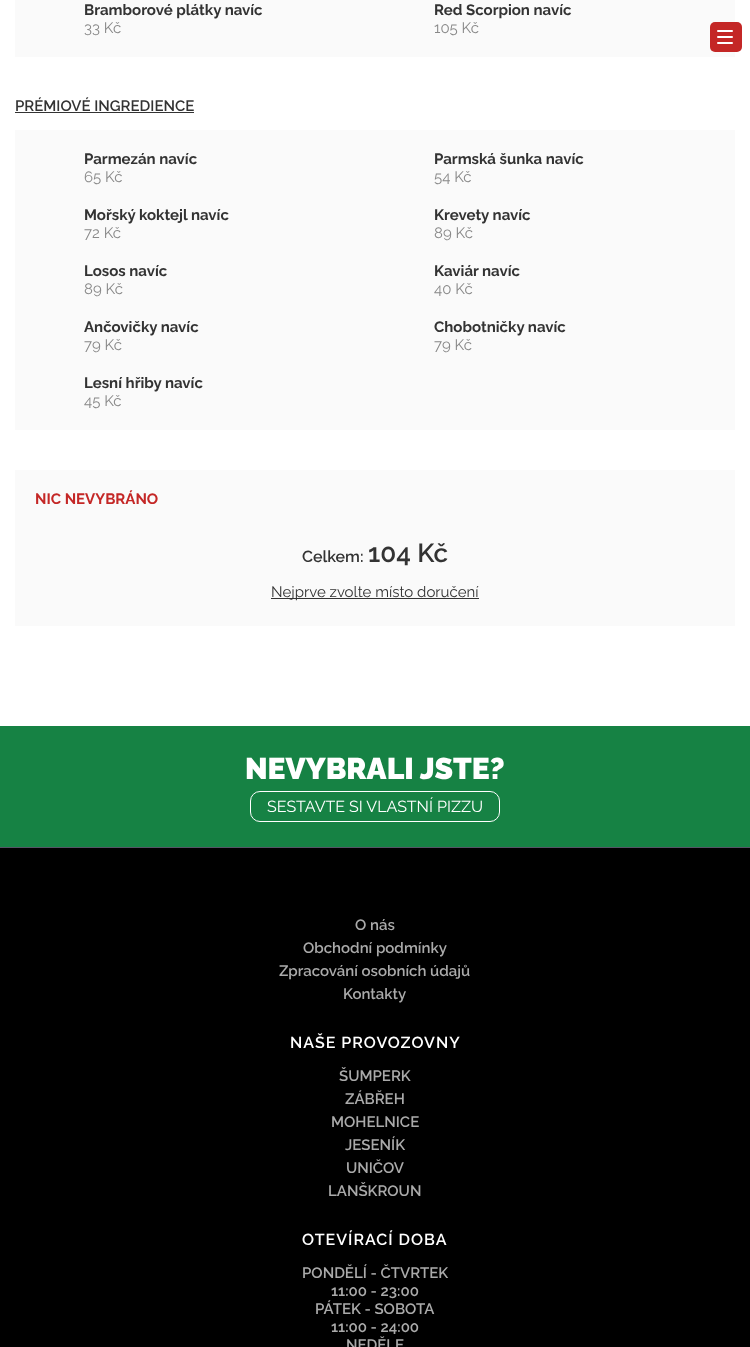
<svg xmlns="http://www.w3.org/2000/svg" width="750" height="1347">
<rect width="100%" height="100%" fill="#000"/>
<rect width="750" height="726" fill="#fff"/>
<rect x="15" width="720" height="57" fill="#fafafa"/>
<text x="84" y="15" style="font-family:Raleway;font-size:15px;font-weight:bold;fill:#333">Bramborové plátky navíc</text>
<text x="84" y="33" style="font-family:Raleway;font-size:15px;fill:#888">33 Kč</text>
<text x="434" y="15" style="font-family:Raleway;font-size:15px;font-weight:bold;fill:#333">Red Scorpion navíc</text>
<text x="434" y="33" style="font-family:Raleway;font-size:15px;fill:#888">105 Kč</text>
<text x="15" y="111" style="font-family:Raleway;font-size:15px;font-weight:600;fill:#333">PRÉMIOVÉ INGREDIENCE</text>
<rect x="15" y="112" width="179" height="1" fill="#333"/>
<rect x="15" y="130" width="720" height="300" fill="#fafafa"/>
<text x="84" y="164" style="font-family:Raleway;font-size:15px;font-weight:bold;fill:#333">Parmezán navíc</text>
<text x="84" y="182" style="font-family:Raleway;font-size:15px;fill:#888">65 Kč</text>
<text x="434" y="164" style="font-family:Raleway;font-size:15px;font-weight:bold;fill:#333">Parmská šunka navíc</text>
<text x="434" y="182" style="font-family:Raleway;font-size:15px;fill:#888">54 Kč</text>
<text x="84" y="220" style="font-family:Raleway;font-size:15px;font-weight:bold;fill:#333">Mořský koktejl navíc</text>
<text x="84" y="238" style="font-family:Raleway;font-size:15px;fill:#888">72 Kč</text>
<text x="434" y="220" style="font-family:Raleway;font-size:15px;font-weight:bold;fill:#333">Krevety navíc</text>
<text x="434" y="238" style="font-family:Raleway;font-size:15px;fill:#888">89 Kč</text>
<text x="84" y="276" style="font-family:Raleway;font-size:15px;font-weight:bold;fill:#333">Losos navíc</text>
<text x="84" y="294" style="font-family:Raleway;font-size:15px;fill:#888">89 Kč</text>
<text x="434" y="276" style="font-family:Raleway;font-size:15px;font-weight:bold;fill:#333">Kaviár navíc</text>
<text x="434" y="294" style="font-family:Raleway;font-size:15px;fill:#888">40 Kč</text>
<text x="84" y="332" style="font-family:Raleway;font-size:15px;font-weight:bold;fill:#333">Ančovičky navíc</text>
<text x="84" y="350" style="font-family:Raleway;font-size:15px;fill:#888">79 Kč</text>
<text x="434" y="332" style="font-family:Raleway;font-size:15px;font-weight:bold;fill:#333">Chobotničky navíc</text>
<text x="434" y="350" style="font-family:Raleway;font-size:15px;fill:#888">79 Kč</text>
<text x="84" y="388" style="font-family:Raleway;font-size:15px;font-weight:bold;fill:#333">Lesní hřiby navíc</text>
<text x="84" y="406" style="font-family:Raleway;font-size:15px;fill:#888">45 Kč</text>
<rect x="15" y="470" width="720" height="156" fill="#fafafa"/>
<text x="35" y="504" style="font-family:Raleway;font-size:15px;font-weight:bold;fill:#c42726">NIC NEVYBRÁNO</text>
<text x="302" y="562" style="font-family:Raleway;font-size:16px;font-weight:600;fill:#333">Celkem:</text>
<text x="368" y="562" style="font-family:Raleway;font-size:26px;font-weight:600;fill:#333">104 Kč</text>
<rect x="271" y="598" width="208" height="1" fill="#333"/>
<text x="271" y="597" style="font-family:Raleway;font-size:15px;fill:#333">Nejprve zvolte místo doručení</text>
<rect x="710" y="22" width="32" height="30" rx="5" fill="#c42726"/>
<rect x="717" y="30" width="16" height="2" rx="1" fill="#fff"/>
<rect x="717" y="36" width="16" height="2" rx="1" fill="#fff"/>
<rect x="717" y="42" width="16" height="2" rx="1" fill="#fff"/>
<rect y="726" width="750" height="121" fill="#168244"/>
<text x="245" y="779" style="font-family:Raleway;font-size:30px;font-weight:900;fill:#fff">NEVYBRALI JSTE?</text>
<rect x="250.5" y="791.5" width="249" height="30" rx="9.5" fill="none" stroke="#fff"/>
<text x="267" y="812" style="font-family:Raleway;font-size:16px;fill:#fff">SESTAVTE SI VLASTNÍ PIZZU</text>
<rect y="847" width="750" height="1" fill="#556"/>
<text x="355" y="930" style="font-family:Raleway;font-size:15px;font-weight:600;fill:#aaa">O nás</text>
<text x="303" y="953" style="font-family:Raleway;font-size:15px;font-weight:600;fill:#aaa">Obchodní podmínky</text>
<text x="279" y="976" style="font-family:Raleway;font-size:15px;font-weight:600;fill:#aaa">Zpracování osobních údajů</text>
<text x="343" y="999" style="font-family:Raleway;font-size:15px;font-weight:600;fill:#aaa">Kontakty</text>
<text x="290" y="1048" style="font-family:Raleway;font-size:16px;font-weight:600;letter-spacing:1px;fill:#fff">NAŠE PROVOZOVNY</text>
<text x="339" y="1081" style="font-family:Raleway;font-size:15px;font-weight:600;fill:#aaa">ŠUMPERK</text>
<text x="345" y="1104" style="font-family:Raleway;font-size:15px;font-weight:600;fill:#aaa">ZÁBŘEH</text>
<text x="331" y="1127" style="font-family:Raleway;font-size:15px;font-weight:600;fill:#aaa">MOHELNICE</text>
<text x="345" y="1150" style="font-family:Raleway;font-size:15px;font-weight:600;fill:#aaa">JESENÍK</text>
<text x="346" y="1173" style="font-family:Raleway;font-size:15px;font-weight:600;fill:#aaa">UNIČOV</text>
<text x="328" y="1196" style="font-family:Raleway;font-size:15px;font-weight:600;fill:#aaa">LANŠKROUN</text>
<text x="302" y="1245" style="font-family:Raleway;font-size:16px;font-weight:600;letter-spacing:1px;fill:#fff">OTEVÍRACÍ DOBA</text>
<text x="302" y="1278" style="font-family:Raleway;font-size:15px;font-weight:600;fill:#aaa">PONDĚLÍ - ČTVRTEK</text>
<text x="331" y="1296" style="font-family:Raleway;font-size:15px;font-weight:600;fill:#aaa">11:00 - 23:00</text>
<text x="315" y="1314" style="font-family:Raleway;font-size:15px;font-weight:600;fill:#aaa">PÁTEK - SOBOTA</text>
<text x="331" y="1332" style="font-family:Raleway;font-size:15px;font-weight:600;fill:#aaa">11:00 - 24:00</text>
<text x="346" y="1350" style="font-family:Raleway;font-size:15px;font-weight:600;fill:#aaa">NEDĚLE</text>
</svg>
